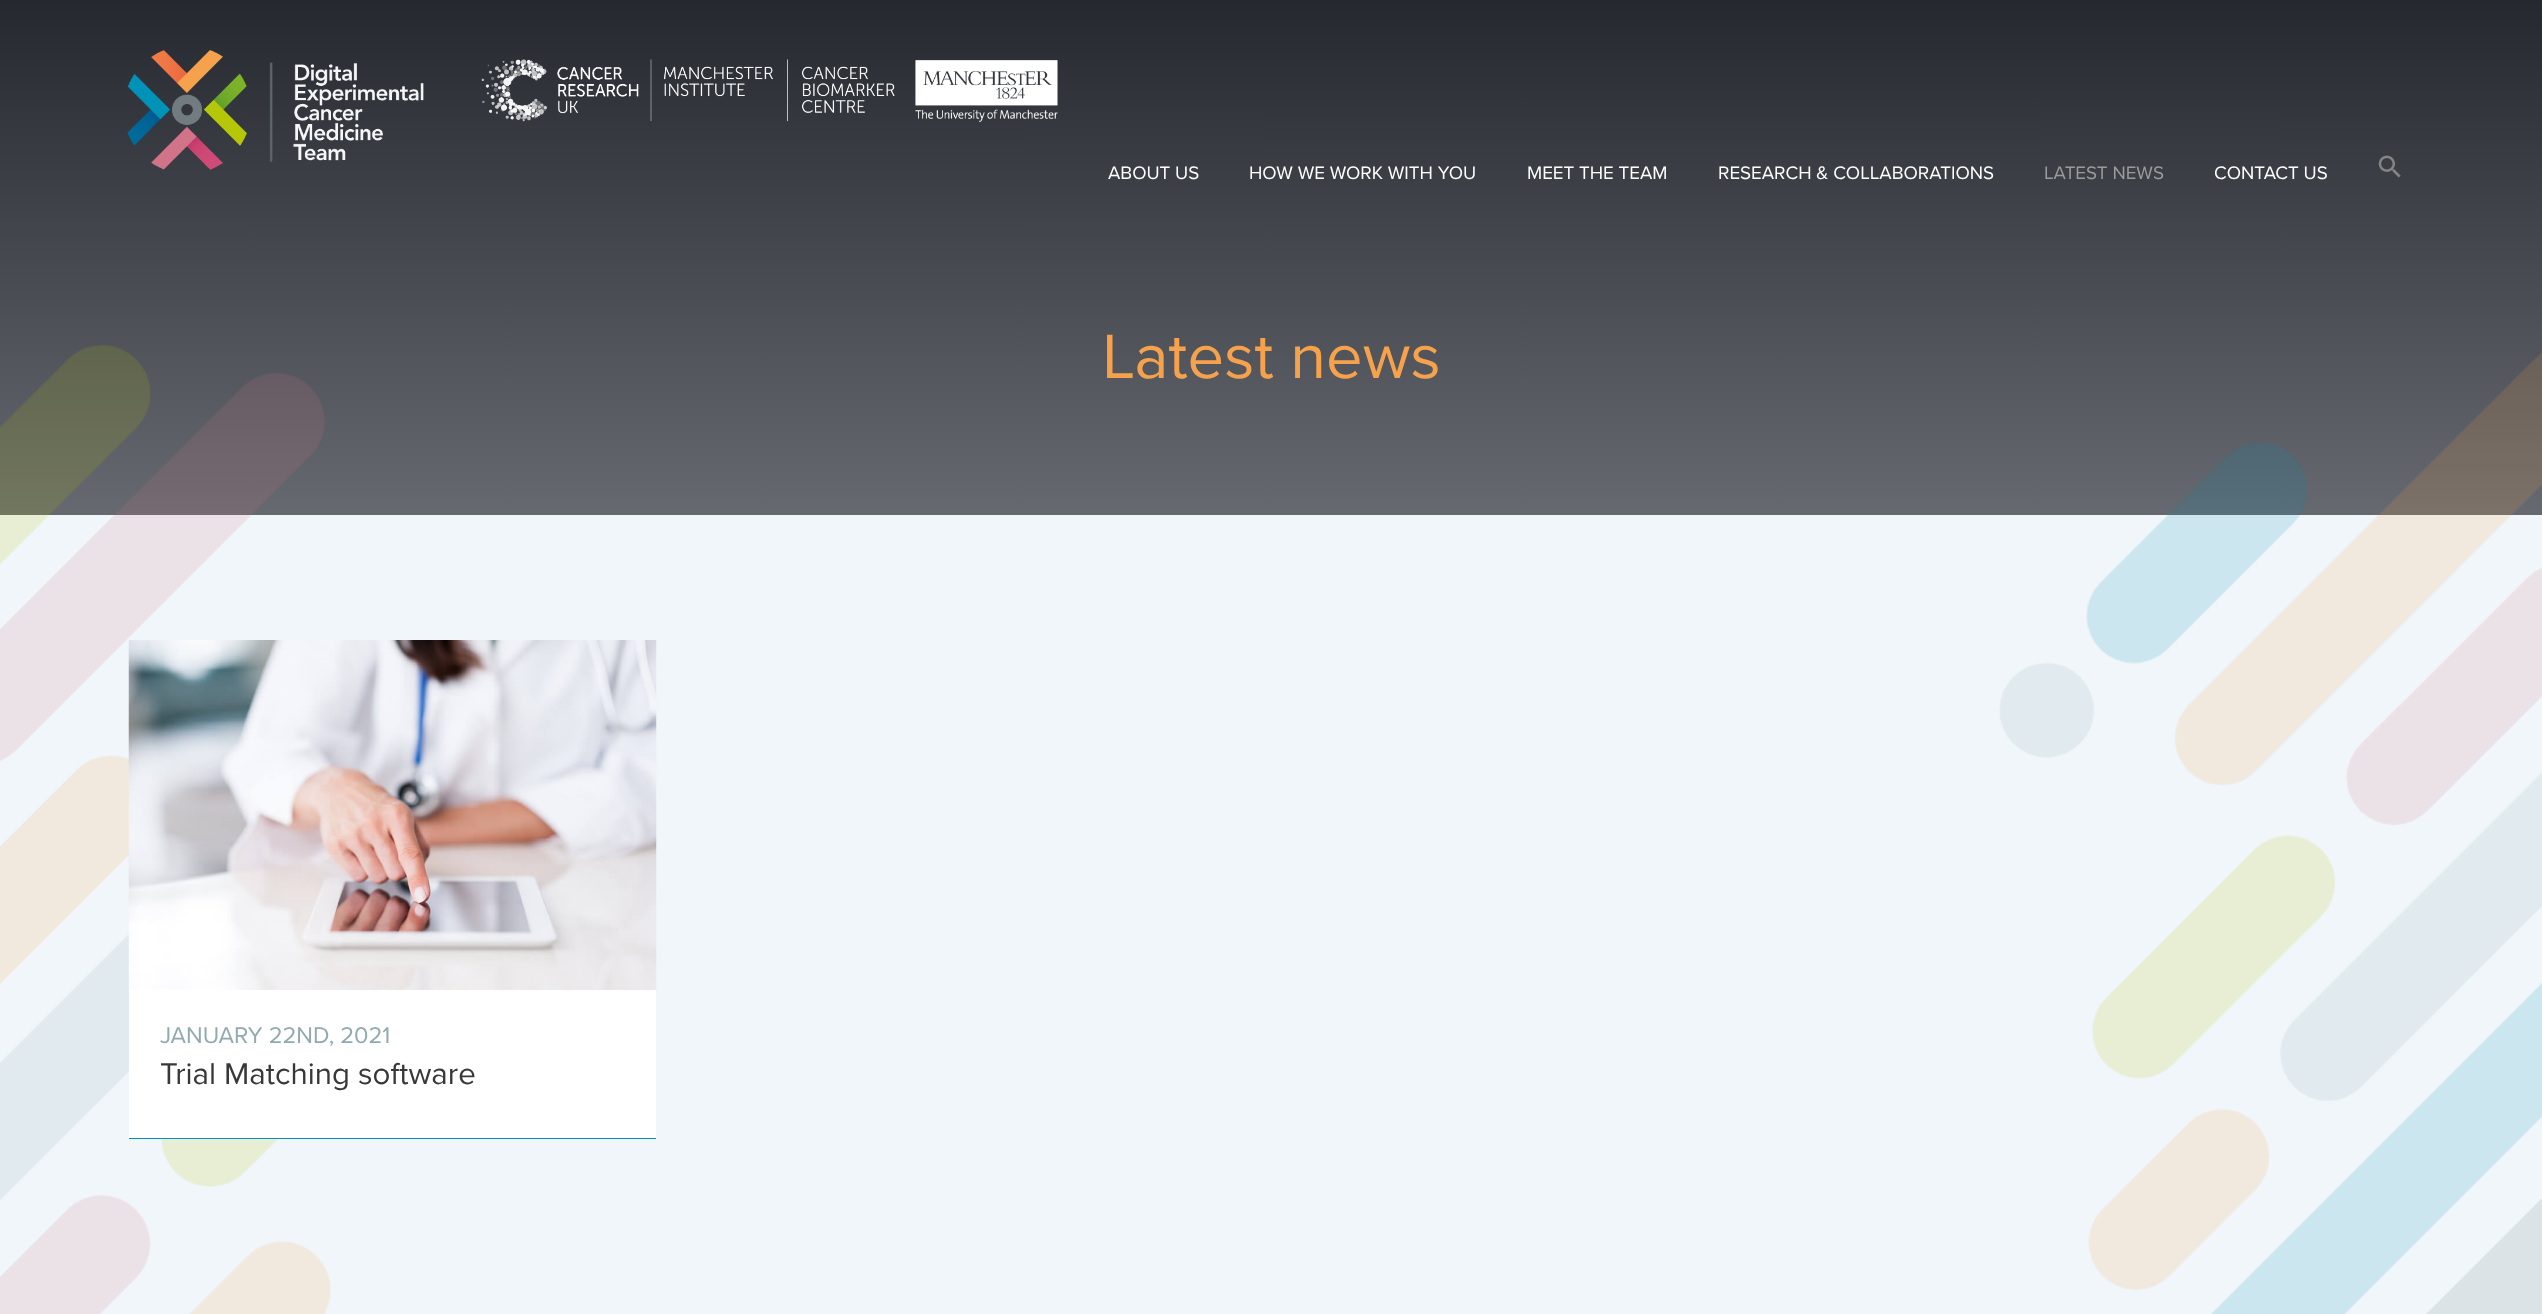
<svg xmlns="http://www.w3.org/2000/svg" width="2542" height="1314">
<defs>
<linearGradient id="g1" gradientUnits="userSpaceOnUse" x1="1271" y1="0" x2="1271" y2="515"><stop offset="0" stop-color="#25292f"/><stop offset="1" stop-color="#66696f"/></linearGradient>
</defs>
<rect width="100%" height="100%" fill="#f0f6fa"/>
<rect width="2542" height="515" fill="url(#g1)"/>
<image x="127" y="50" width="297" height="120" href="media/1.png"/>
<image x="481" y="59" width="577" height="63" href="media/2.png"/>
<text x="1108" y="179" style="font-family:Proxima Nova;font-size:18.75px;fill:#fff">ABOUT US</text>
<text x="1249" y="179" style="font-family:Proxima Nova;font-size:18.75px;fill:#fff">HOW WE WORK WITH YOU</text>
<text x="1527" y="179" style="font-family:Proxima Nova;font-size:18.75px;fill:#fff">MEET THE TEAM</text>
<text x="1718" y="179" style="font-family:Proxima Nova;font-size:18.75px;fill:#fff">RESEARCH &amp; COLLABORATIONS</text>
<text x="2044" y="179" style="font-family:Proxima Nova;font-size:18.75px;fill:#9b9b9b">LATEST NEWS</text>
<text x="2214" y="179" style="font-family:Proxima Nova;font-size:18.75px;fill:#fff">CONTACT US</text>
<image x="2378" y="155" width="23" height="23" href="media/3.png"/>
<image x="0" y="345" width="331" height="969" href="media/4.png"/>
<text x="1102" y="378" style="font-family:Proxima Nova;font-size:65px;fill:#f6a24c">Latest news</text>
<image x="1999" y="352" width="543" height="962" href="media/5.png"/>
<image x="128" y="640" width="529" height="350" href="media/6.png"/>
<rect x="129" y="990" width="527" height="148" fill="#fff"/>
<rect x="129" y="1138" width="527" height="1" fill="#0092b7"/>
<text x="160" y="1043" style="font-family:Proxima Nova;font-size:23.5px;fill:#92aaaf">JANUARY 22ND, 2021</text>
<text x="160" y="1084" style="font-family:Proxima Nova;font-size:31.25px;fill:#383838">Trial Matching software</text>
</svg>
